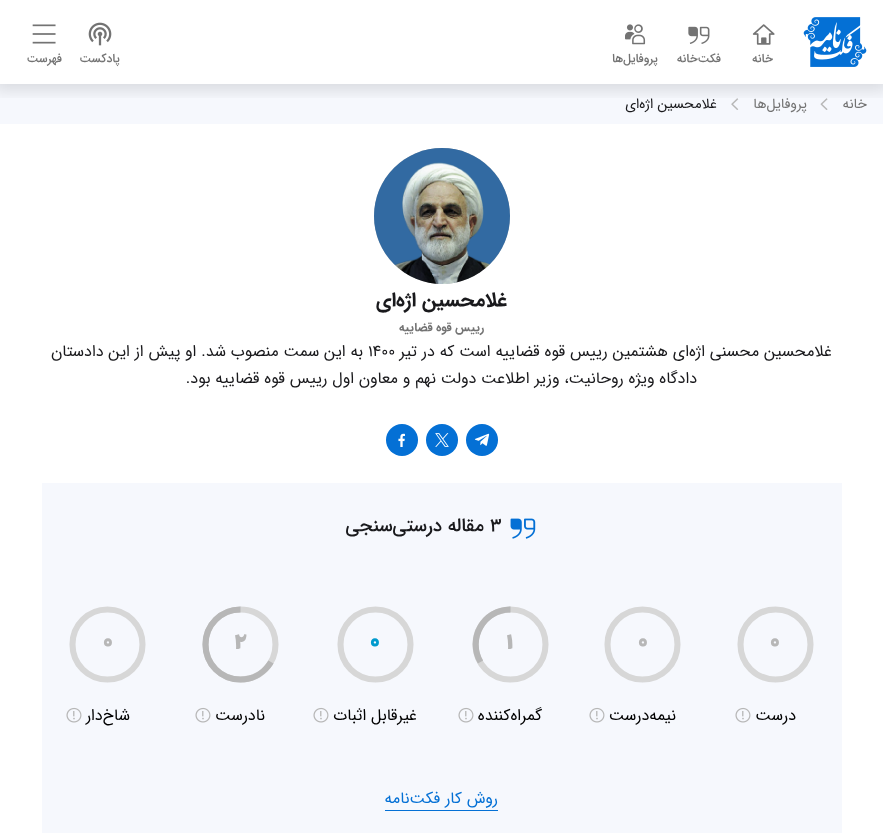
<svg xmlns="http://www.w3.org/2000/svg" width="883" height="833">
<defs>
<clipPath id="clip1"><rect x="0" y="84" width="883" height="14"/></clipPath>
</defs>
<rect width="100%" height="100%" fill="#fff"/>
<rect y="84" width="883" height="40" fill="#f6f8fd"/>
<image x="820" y="98" width="8" height="12" href="media/7.png"/>
<image x="731" y="98" width="8" height="12" href="media/8.png"/>
<g clip-path="url(#clip1)">
<rect x="-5" y="-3" width="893" height="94" fill="#0000001c" filter="blur(7.5px)"/>
</g>
<image x="803" y="17" width="64" height="50" href="media/1.png"/>
<image x="752" y="24" width="23" height="21" href="media/2.png"/>
<text x="773" y="62" style="font-family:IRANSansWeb;font-size:12px;font-weight:500;direction:rtl;fill:#737373">خانه</text>
<image x="688" y="26" width="22" height="18" href="media/3.png"/>
<text x="721" y="62" style="font-family:IRANSansWeb;font-size:12px;font-weight:500;direction:rtl;fill:#737373">فکت‌خانه</text>
<image x="625" y="24" width="21" height="21" href="media/4.png"/>
<text x="658" y="62" style="font-family:IRANSansWeb;font-size:12px;font-weight:500;direction:rtl;fill:#737373">پروفایل‌ها</text>
<image x="88" y="22" width="24" height="24" href="media/5.png"/>
<text x="120" y="62" style="font-family:IRANSansWeb;font-size:12px;font-weight:500;direction:rtl;fill:#737373">پادکست</text>
<image x="32" y="24" width="24" height="20" href="media/6.png"/>
<text x="62" y="62" style="font-family:IRANSansWeb;font-size:12px;font-weight:500;direction:rtl;fill:#737373">فهرست</text>
<text x="867" y="108" style="font-family:IRANSansWeb;font-size:14px;direction:rtl;fill:#737373">خانه</text>
<text x="807" y="108" style="font-family:IRANSansWeb;font-size:14px;direction:rtl;fill:#737373">پروفایل‌ها</text>
<text x="717" y="108" style="font-family:IRANSansWeb;font-size:14px;direction:rtl;fill:#19191c">غلامحسین اژه‌ای</text>
<circle cx="442" cy="216" r="68" fill="#b7b7b7"/>
<image x="374" y="148" width="136" height="136" href="media/9.png"/>
<text x="507" y="306" style="font-family:IRANSansWeb;font-size:20px;font-weight:bold;direction:rtl;fill:#19191c">غلامحسین اژه‌ای</text>
<text x="484" y="331" style="font-family:IRANSansWeb;font-size:12px;font-weight:bold;direction:rtl;fill:#737373">رییس قوه قضاییه</text>
<text x="832" y="356" style="font-family:IRANSansWeb;font-size:16px;direction:rtl;fill:#19191c">غلامحسین محسنی اژه‌ای هشتمین رییس قوه قضاییه است که در تیر</text>
<text x="368" y="356" style="font-family:IRANSansWeb;font-size:16px;fill:#19191c">۱۴۰۰</text>
<text x="363" y="356" style="font-family:IRANSansWeb;font-size:16px;direction:rtl;fill:#19191c">به این سمت منصوب شد. او پیش از این دادستان</text>
<text x="697" y="383" style="font-family:IRANSansWeb;font-size:16px;direction:rtl;fill:#19191c">دادگاه ویژه روحانیت، وزیر اطلاعت دولت نهم و معاون اول رییس قوه قضاییه بود.</text>
<circle cx="482" cy="440" r="16" fill="#0470d5"/>
<image x="474" y="433" width="16" height="13" href="media/10.png"/>
<circle cx="442" cy="440" r="16" fill="#0470d5"/>
<image x="435" y="433" width="14" height="14" href="media/11.png"/>
<circle cx="402" cy="440" r="16" fill="#0470d5"/>
<image x="398" y="433" width="7" height="14" href="media/12.png"/>
<rect x="42" y="483" width="800" height="350" fill="#f6f8fd"/>
<image x="510" y="518" width="26" height="21" href="media/13.png"/>
<text x="490" y="531" style="font-family:IRANSansWeb;font-size:18.75px;font-weight:500;fill:#19191c">۳</text>
<text x="484" y="531" style="font-family:IRANSansWeb;font-size:18.75px;font-weight:500;direction:rtl;fill:#19191c">مقاله درستی‌سنجی</text>
<path d="M775.5 609.5c-19.5 0-35 15.5-35 35c0 19.5 15.5 35 35 35c19.5 0 35-15.5 35-35c0-19.5-15.5-35-35-35" fill="none" stroke="#d7d7d7" stroke-width="6.1"/>
<path d="M775.5 609.5c-19.5 0-35 15.5-35 35c0 19.5 15.5 35 35 35c19.5 0 35-15.5 35-35c0-19.5-15.5-35-35-35" fill="none" stroke="#b7b7b7" stroke-width="6.1" stroke-dasharray="0 219.44"/>
<text x="770" y="649" style="font-family:Lalezar;font-size:26px;fill:#b7b7b7">۰</text>
<text x="796" y="720" style="font-family:IRANSansWeb;font-size:16px;direction:rtl;fill:#000">درست</text>
<image x="735" y="707" width="16" height="16" href="media/14.png"/>
<path d="M642.5 609.5c-19.5 0-35 15.5-35 35c0 19.5 15.5 35 35 35c19.5 0 35-15.5 35-35c0-19.5-15.5-35-35-35" fill="none" stroke="#d7d7d7" stroke-width="6.1"/>
<path d="M642.5 609.5c-19.5 0-35 15.5-35 35c0 19.5 15.5 35 35 35c19.5 0 35-15.5 35-35c0-19.5-15.5-35-35-35" fill="none" stroke="#b7b7b7" stroke-width="6.1" stroke-dasharray="0 219.44"/>
<text x="638" y="649" style="font-family:Lalezar;font-size:26px;fill:#b7b7b7">۰</text>
<text x="676" y="720" style="font-family:IRANSansWeb;font-size:16px;direction:rtl;fill:#000">نیمه‌درست</text>
<image x="589" y="707" width="16" height="16" href="media/14.png"/>
<path d="M510.5 609.5c-19.5 0-35 15.5-35 35c0 19.5 15.5 35 35 35c19.5 0 35-15.5 35-35c0-19.5-15.5-35-35-35" fill="none" stroke="#d7d7d7" stroke-width="6.1"/>
<path d="M510.5 609.5c-27 0-43.5 29.5-30 52.5" fill="none" stroke="#b7b7b7" stroke-width="6.1"/>
<text x="506" y="649" style="font-family:Lalezar;font-size:26px;fill:#b7b7b7">۱</text>
<text x="542" y="720" style="font-family:IRANSansWeb;font-size:16px;direction:rtl;fill:#000">گمراه‌کننده</text>
<image x="458" y="707" width="16" height="16" href="media/14.png"/>
<path d="M375.5 609.5c-19.5 0-35 15.5-35 35c0 19.5 15.5 35 35 35c19.5 0 35-15.5 35-35c0-19.5-15.5-35-35-35" fill="none" stroke="#d7d7d7" stroke-width="6.1"/>
<path d="M375.5 609.5c-19.5 0-35 15.5-35 35c0 19.5 15.5 35 35 35c19.5 0 35-15.5 35-35c0-19.5-15.5-35-35-35" fill="none" stroke="#009acd" stroke-width="6.1" stroke-dasharray="0 219.44"/>
<text x="370" y="649" style="font-family:Lalezar;font-size:26px;fill:#009acd">۰</text>
<text x="417" y="720" style="font-family:IRANSansWeb;font-size:16px;direction:rtl;fill:#000">غیر‌قابل اثبات</text>
<image x="313" y="707" width="16" height="16" href="media/14.png"/>
<path d="M240.5 609.5c-19.5 0-35 15.5-35 35c0 19.5 15.5 35 35 35c19.5 0 35-15.5 35-35c0-19.5-15.5-35-35-35" fill="none" stroke="#d7d7d7" stroke-width="6.1"/>
<path d="M240.5 609.5c-19.5 0-35 15.5-35 35c0 19.5 15.5 35 35 35c13 0 24-7 30.5-17.5" fill="none" stroke="#b7b7b7" stroke-width="6.1"/>
<text x="234" y="649" style="font-family:Lalezar;font-size:26px;fill:#b7b7b7">۲</text>
<text x="265" y="720" style="font-family:IRANSansWeb;font-size:16px;direction:rtl;fill:#000">نادرست</text>
<image x="195" y="707" width="16" height="16" href="media/14.png"/>
<path d="M107.5 609.5c-19.5 0-35 15.5-35 35c0 19.5 15.5 35 35 35c19.5 0 35-15.5 35-35c0-19.5-15.5-35-35-35" fill="none" stroke="#d7d7d7" stroke-width="6.1"/>
<path d="M107.5 609.5c-19.5 0-35 15.5-35 35c0 19.5 15.5 35 35 35c19.5 0 35-15.5 35-35c0-19.5-15.5-35-35-35" fill="none" stroke="#b7b7b7" stroke-width="6.1" stroke-dasharray="0 219.44"/>
<text x="103" y="649" style="font-family:Lalezar;font-size:26px;fill:#b7b7b7">۰</text>
<text x="130" y="720" style="font-family:IRANSansWeb;font-size:16px;direction:rtl;fill:#000">شاخ‌دار</text>
<image x="66" y="707" width="16" height="16" href="media/14.png"/>
<text x="498" y="803" style="font-family:IRANSansWeb;font-size:16px;direction:rtl;fill:#0470d5">روش کار فکت‌نامه</text>
<rect x="385" y="810" width="113" height="1" fill="#0470d5"/>
</svg>
